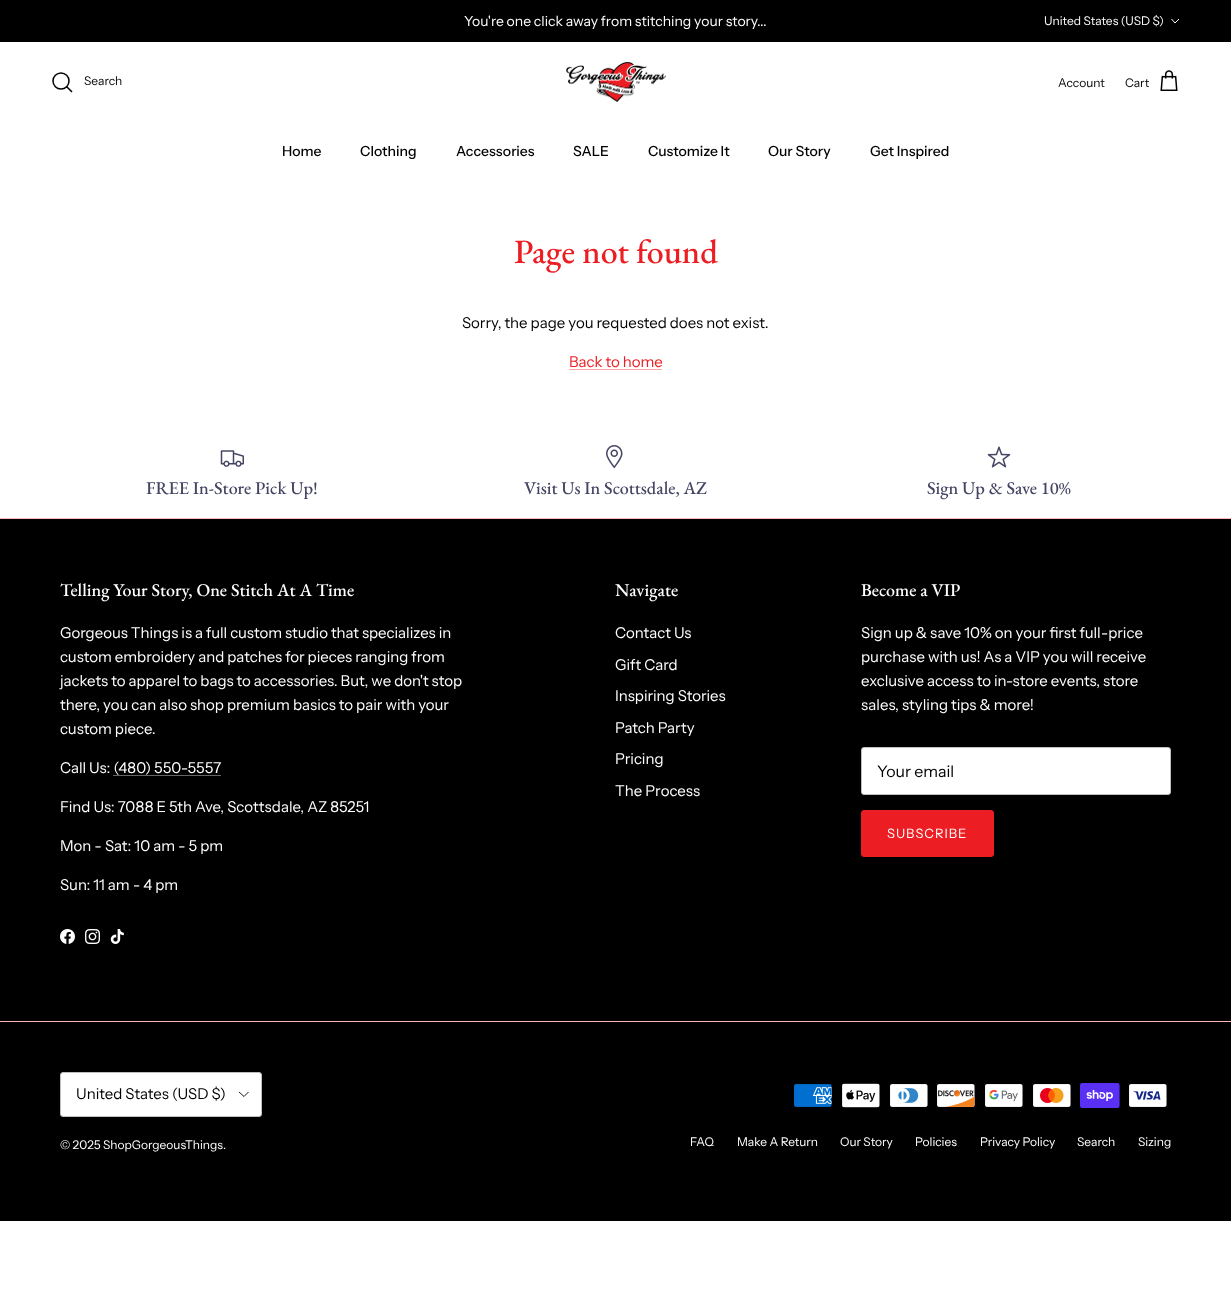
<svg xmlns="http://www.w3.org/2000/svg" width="1231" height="1307">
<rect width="100%" height="100%" fill="#fff"/>
<rect width="1231" height="42" fill="#000"/>
<text x="464" y="26" style="font-family:Instrument Sans;font-size:14px;fill:#fff">You're one click away from stitching your story...</text>
<text x="1044" y="25" style="font-family:Instrument Sans;font-size:12px;fill:#fff">United States (USD $)</text>
<path d="M1179 19l-4 4l-3.5-4" fill="none" stroke="#fff"/>
<circle cx="61" cy="81" r="8" fill="none" stroke="#000" stroke-width="1.5"/>
<text x="84" y="85" style="font-family:Instrument Sans;font-size:12px;fill:#000">Search</text>
<path d="M67 87l4.5 4.5" fill="none" stroke="#000" stroke-width="1.5" stroke-linecap="square"/>
<image x="566" y="62" width="100" height="40" href="media/1.png"/>
<text x="1058" y="87" style="font-family:Instrument Sans;font-size:12px;fill:#000">Account</text>
<text x="1125" y="87" style="font-family:Instrument Sans;font-size:12px;fill:#000">Cart</text>
<image x="1160" y="70" width="18" height="21" href="media/2.png"/>
<text x="282" y="156" style="font-family:Instrument Sans;font-size:14px;font-weight:500;fill:#000">Home</text>
<text x="360" y="156" style="font-family:Instrument Sans;font-size:14px;font-weight:500;fill:#000">Clothing</text>
<text x="456" y="156" style="font-family:Instrument Sans;font-size:14px;font-weight:500;fill:#000">Accessories</text>
<text x="573" y="156" style="font-family:Instrument Sans;font-size:14px;font-weight:500;fill:#000">SALE</text>
<text x="648" y="156" style="font-family:Instrument Sans;font-size:14px;font-weight:500;fill:#000">Customize It</text>
<text x="768" y="156" style="font-family:Instrument Sans;font-size:14px;font-weight:500;fill:#000">Our Story</text>
<text x="870" y="156" style="font-family:Instrument Sans;font-size:14px;font-weight:500;fill:#000">Get Inspired</text>
<text x="514" y="263" style="font-family:EB Garamond;font-size:34px;font-weight:500;fill:#ec1e23">Page not found</text>
<text x="462" y="328" style="font-family:Instrument Sans;font-size:15px;fill:#000">Sorry, the page you requested does not exist.</text>
<text x="569" y="367" style="font-family:Instrument Sans;font-size:15px;fill:#ec1e23">Back to home</text>
<rect x="569" y="369" width="93" height="1" fill="#f7a5a7"/>
<image x="220" y="450" width="24" height="17" href="media/3.png"/>
<text x="146" y="494" style="font-family:EB Garamond;font-size:18px;font-weight:500;fill:#454564">FREE In-Store Pick Up!</text>
<image x="606" y="445" width="17" height="24" href="media/4.png"/>
<text x="524" y="494" style="font-family:EB Garamond;font-size:18px;font-weight:500;fill:#454564">Visit Us In Scottsdale, AZ</text>
<image x="987" y="446" width="24" height="22" href="media/5.png"/>
<text x="927" y="494" style="font-family:EB Garamond;font-size:18px;font-weight:500;fill:#454564">Sign Up &amp; Save 10%</text>
<rect y="519" width="1231" height="702" fill="#000"/>
<rect y="518" width="1231" height="1" fill="#ffb6b7"/>
<text x="60" y="596" style="font-family:EB Garamond;font-size:18px;font-weight:500;fill:#fff">Telling Your Story, One Stitch At A Time</text>
<text x="60" y="638" style="font-family:Instrument Sans;font-size:15px;fill:#fff">Gorgeous Things is a full custom studio that specializes in</text>
<text x="60" y="662" style="font-family:Instrument Sans;font-size:15px;fill:#fff">custom embroidery and patches for pieces ranging from</text>
<text x="60" y="686" style="font-family:Instrument Sans;font-size:15px;fill:#fff">jackets to apparel to bags to accessories. But, we don't stop</text>
<text x="60" y="710" style="font-family:Instrument Sans;font-size:15px;fill:#fff">there, you can also shop premium basics to pair with your</text>
<text x="60" y="734" style="font-family:Instrument Sans;font-size:15px;fill:#fff">custom piece.</text>
<text x="60" y="773" style="font-family:Instrument Sans;font-size:15px;fill:#fff">Call Us: (480) 550-5557</text>
<rect x="113" y="775" width="108" height="1" fill="#666"/>
<text x="60" y="812" style="font-family:Instrument Sans;font-size:15px;fill:#fff">Find Us: 7088 E 5th Ave, Scottsdale, AZ 85251</text>
<text x="60" y="851" style="font-family:Instrument Sans;font-size:15px;fill:#fff">Mon - Sat: 10 am - 5 pm</text>
<text x="60" y="890" style="font-family:Instrument Sans;font-size:15px;fill:#fff">Sun: 11 am - 4 pm</text>
<image x="60" y="929" width="15" height="15" href="media/6.png"/>
<image x="85" y="929" width="15" height="15" href="media/7.png"/>
<image x="110" y="929" width="14" height="15" href="media/8.png"/>
<text x="615" y="596" style="font-family:EB Garamond;font-size:18px;font-weight:500;fill:#fff">Navigate</text>
<text x="615" y="638" style="font-family:Instrument Sans;font-size:15px;fill:#fff">Contact Us</text>
<text x="615" y="670" style="font-family:Instrument Sans;font-size:15px;fill:#fff">Gift Card</text>
<text x="615" y="701" style="font-family:Instrument Sans;font-size:15px;fill:#fff">Inspiring Stories</text>
<text x="615" y="733" style="font-family:Instrument Sans;font-size:15px;fill:#fff">Patch Party</text>
<text x="615" y="764" style="font-family:Instrument Sans;font-size:15px;fill:#fff">Pricing</text>
<text x="615" y="796" style="font-family:Instrument Sans;font-size:15px;fill:#fff">The Process</text>
<text x="861" y="596" style="font-family:EB Garamond;font-size:18px;font-weight:500;fill:#fff">Become a VIP</text>
<text x="861" y="638" style="font-family:Instrument Sans;font-size:15px;fill:#fff">Sign up &amp; save 10% on your first full-price</text>
<text x="861" y="662" style="font-family:Instrument Sans;font-size:15px;fill:#fff">purchase with us! As a VIP you will receive</text>
<text x="861" y="686" style="font-family:Instrument Sans;font-size:15px;fill:#fff">exclusive access to in-store events, store</text>
<text x="861" y="710" style="font-family:Instrument Sans;font-size:15px;fill:#fff">sales, styling tips &amp; more!</text>
<rect x="861.5" y="747.5" width="309" height="47" rx="2.5" fill="#fff" stroke="#bfbfbf"/>
<text x="877" y="777" style="font-family:Instrument Sans;font-size:16px;fill:#000">Your email</text>
<rect x="861.5" y="810.5" width="132" height="46" rx="2.5" fill="#ec1e23" stroke="#ec1e23"/>
<text x="887" y="838" style="font-family:Instrument Sans;font-size:13px;letter-spacing:1px;fill:#fff">SUBSCRIBE</text>
<rect y="1021" width="1231" height="1" fill="#ffb6b7"/>
<rect x="60.5" y="1072.5" width="201" height="44" rx="2.5" fill="#fff" stroke="#bfbfbf"/>
<text x="76" y="1099" style="font-family:Instrument Sans;font-size:15px;fill:#000">United States (USD $)</text>
<path d="M248.5 1092l-4.5 4.5l-5-4.5" fill="none" stroke="#000" stroke-width="0.9"/>
<text x="60" y="1149" style="font-family:Instrument Sans;font-size:12px;fill:#fff">© 2025 ShopGorgeousThings</text>
<text x="223" y="1149" style="font-family:Instrument Sans;font-size:12px;fill:#fff">.</text>
<image x="794" y="1084" width="38" height="23" href="media/9.png"/>
<image x="842" y="1083" width="38" height="25" href="media/10.png"/>
<image x="890" y="1084" width="38" height="23" href="media/11.png"/>
<image x="937" y="1084" width="38" height="23" href="media/12.png"/>
<image x="985" y="1084" width="38" height="23" href="media/13.png"/>
<image x="1033" y="1084" width="38" height="23" href="media/14.png"/>
<image x="1080" y="1083" width="40" height="25" href="media/15.png"/>
<image x="1129" y="1084" width="38" height="23" href="media/16.png"/>
<text x="690" y="1146" style="font-family:Instrument Sans;font-size:12px;fill:#fff">FAQ</text>
<text x="737" y="1146" style="font-family:Instrument Sans;font-size:12px;fill:#fff">Make A Return</text>
<text x="840" y="1146" style="font-family:Instrument Sans;font-size:12px;fill:#fff">Our Story</text>
<text x="915" y="1146" style="font-family:Instrument Sans;font-size:12px;fill:#fff">Policies</text>
<text x="980" y="1146" style="font-family:Instrument Sans;font-size:12px;fill:#fff">Privacy Policy</text>
<text x="1077" y="1146" style="font-family:Instrument Sans;font-size:12px;fill:#fff">Search</text>
<text x="1138" y="1146" style="font-family:Instrument Sans;font-size:12px;fill:#fff">Sizing</text>
</svg>
